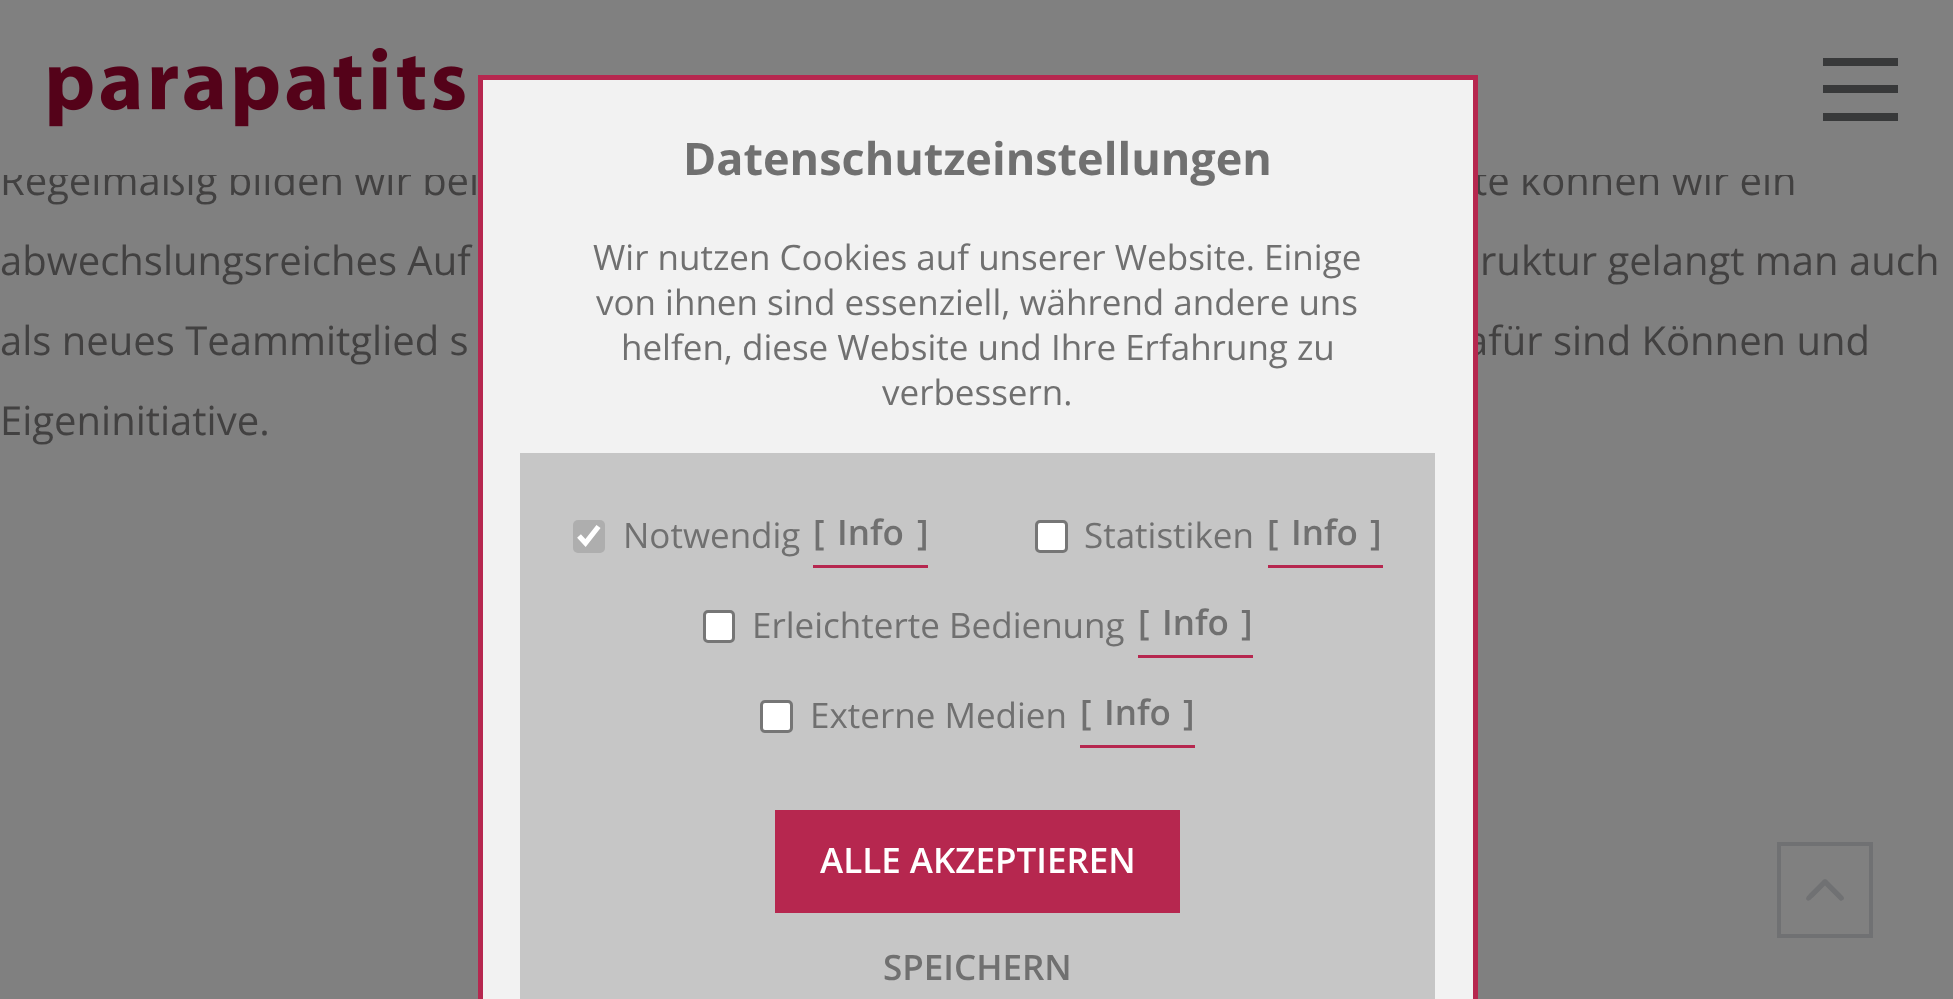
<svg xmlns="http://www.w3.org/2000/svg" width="1953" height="999">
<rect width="100%" height="100%" fill="#808080"/>
<text x="0" y="195" style="font-family:Open Sans;font-size:40px;fill:#424141">Regelmäßig bilden wir bei</text>
<text x="1473" y="195" style="font-family:Open Sans;font-size:40px;fill:#424141">te können wir ein</text>
<rect x="3" y="164" width="1788" height="11" fill="#808080"/>
<image x="49" y="47" width="416" height="80" href="media/1.png"/>
<rect x="1823" y="58" width="75" height="8" fill="#38393a"/>
<rect x="1823" y="85" width="75" height="8" fill="#38393a"/>
<rect x="1823" y="113" width="75" height="8" fill="#38393a"/>
<text x="1466" y="355" style="font-family:Open Sans;font-size:40px;fill:#424141">afür sind Können und</text>
<rect x="480.5" y="77.5" width="995" height="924" fill="none" stroke="#b6274f" stroke-width="5"/>
<rect x="483" y="80" width="990" height="919" fill="#f2f2f2"/>
<text x="683" y="175" style="font-family:Open Sans;font-size:45px;font-weight:bold;fill:#707070">Datenschutzeinstellungen</text>
<text x="593" y="270" style="font-family:Open Sans;font-size:35px;fill:#707070">Wir nutzen Cookies auf unserer Website. Einige</text>
<text x="596" y="315" style="font-family:Open Sans;font-size:35px;fill:#707070">von ihnen sind essenziell, während andere uns</text>
<text x="621" y="360" style="font-family:Open Sans;font-size:35px;fill:#707070">helfen, diese Website und Ihre Erfahrung zu</text>
<text x="882" y="405" style="font-family:Open Sans;font-size:35px;fill:#707070">verbessern.</text>
<rect x="520" y="453" width="915" height="546" fill="#c6c6c6"/>
<rect x="573" y="520" width="32" height="33" rx="5" fill="#aeaeae"/>
<path d="M579 536l6.5 7l13-16.5" fill="none" stroke="#fff" stroke-width="5.2"/>
<text x="623" y="548" style="font-family:Open Sans;font-size:35px;fill:#707070">Notwendig</text>
<rect x="813" y="565" width="115" height="3" fill="#b6274f"/>
<text x="813" y="545" style="font-family:Open Sans;font-size:35px;font-weight:600;fill:#707070">[</text>
<text x="837" y="545" style="font-family:Open Sans;font-size:35px;font-weight:600;fill:#707070">Info</text>
<text x="917" y="545" style="font-family:Open Sans;font-size:35px;font-weight:600;fill:#707070">]</text>
<rect x="1036.5" y="521.5" width="30" height="30" rx="3.5" fill="#fff" stroke="#767676" stroke-width="3"/>
<text x="1084" y="548" style="font-family:Open Sans;font-size:35px;fill:#707070">Statistiken</text>
<rect x="1268" y="565" width="115" height="3" fill="#b6274f"/>
<text x="1267" y="545" style="font-family:Open Sans;font-size:35px;font-weight:600;fill:#707070">[</text>
<text x="1291" y="545" style="font-family:Open Sans;font-size:35px;font-weight:600;fill:#707070">Info</text>
<text x="1370" y="545" style="font-family:Open Sans;font-size:35px;font-weight:600;fill:#707070">]</text>
<rect x="704.5" y="611.5" width="29" height="30" rx="3.5" fill="#fff" stroke="#767676" stroke-width="3"/>
<text x="752" y="638" style="font-family:Open Sans;font-size:35px;fill:#707070">Erleichterte Bedienung</text>
<rect x="1138" y="655" width="115" height="3" fill="#b6274f"/>
<text x="1138" y="635" style="font-family:Open Sans;font-size:35px;font-weight:600;fill:#707070">[</text>
<text x="1162" y="635" style="font-family:Open Sans;font-size:35px;font-weight:600;fill:#707070">Info</text>
<text x="1241" y="635" style="font-family:Open Sans;font-size:35px;font-weight:600;fill:#707070">]</text>
<rect x="761.5" y="701.5" width="30" height="30" rx="3.5" fill="#fff" stroke="#767676" stroke-width="3"/>
<text x="810" y="728" style="font-family:Open Sans;font-size:35px;fill:#707070">Externe Medien</text>
<rect x="1080" y="745" width="115" height="3" fill="#b6274f"/>
<text x="1080" y="725" style="font-family:Open Sans;font-size:35px;font-weight:600;fill:#707070">[</text>
<text x="1104" y="725" style="font-family:Open Sans;font-size:35px;font-weight:600;fill:#707070">Info</text>
<text x="1183" y="725" style="font-family:Open Sans;font-size:35px;font-weight:600;fill:#707070">]</text>
<rect x="775" y="810" width="405" height="103" fill="#b6274f"/>
<text x="820" y="873" style="font-family:Open Sans;font-size:35px;font-weight:600;fill:#fff">ALLE AKZEPTIEREN</text>
<text x="883" y="980" style="font-family:Open Sans;font-size:35px;font-weight:600;fill:#707070">SPEICHERN</text>
<text x="0" y="275" style="font-family:Open Sans;font-size:40px;fill:#424141">abwechslungsreiches Auf</text>
<text x="1480" y="275" style="font-family:Open Sans;font-size:40px;fill:#424141">ruktur gelangt man auch</text>
<text x="0" y="355" style="font-family:Open Sans;font-size:40px;fill:#424141">als neues Teammitglied s</text>
<text x="0" y="435" style="font-family:Open Sans;font-size:40px;fill:#424141">Eigeninitiative.</text>
<path d="M1825 879c-2 0-3.5 3-4.5 3.5l-11 11c-1.5 2-5.5 5-2 7c2 1 4-2 5.5-3l12-12l15 15c.5 .5 1.5 .5 2 0l1.5-1c2-2-2-4.5-3-6l-11-11c-1-.5-2.5-3.5-4.5-3.5z" fill="#707173"/>
<path d="M1869 846v88h-88v-88h88m4-4h-96v96h96z" fill="#707173"/>
</svg>
